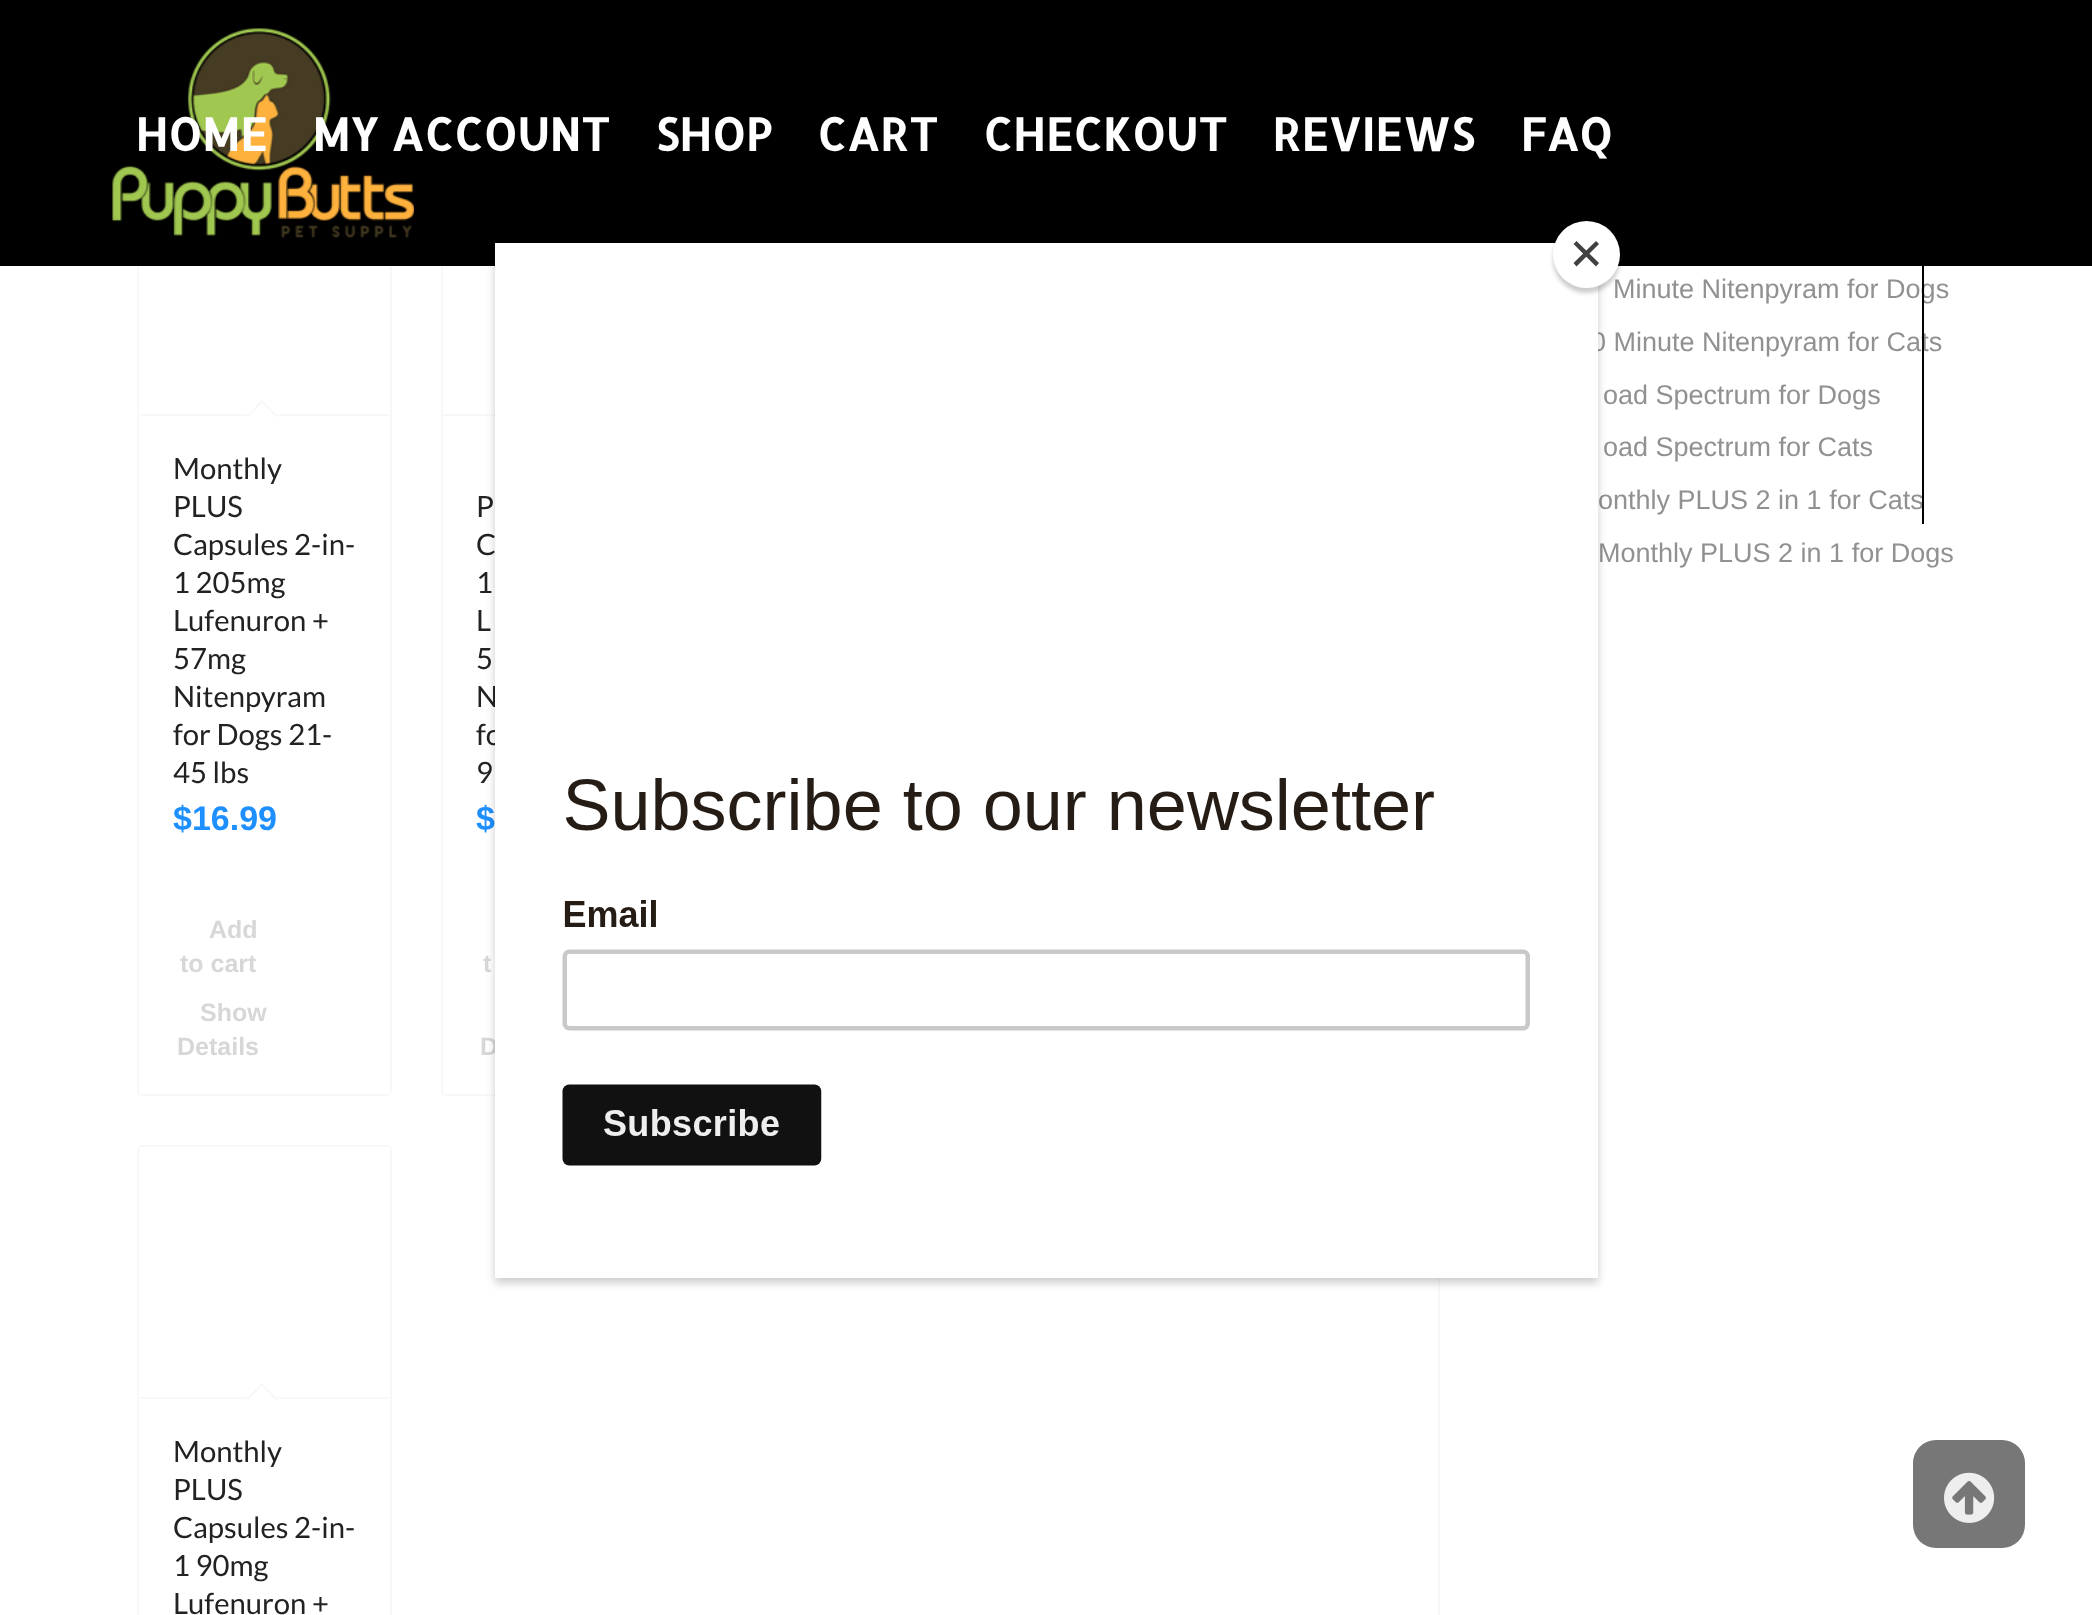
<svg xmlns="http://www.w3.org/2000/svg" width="2092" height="1615">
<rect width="100%" height="100%" fill="#fff"/>
<rect x="138" y="163" width="253" height="932" rx="4" fill="none" stroke="#f8f8f8" stroke-width="2"/>
<rect x="442" y="163" width="252" height="932" rx="4" fill="none" stroke="#f8f8f8" stroke-width="2"/>
<rect width="2092" height="266" fill="#000"/>
<image x="112" y="28" width="302" height="210" href="media/1.png"/>
<text x="1613" y="298" style="font-family:Liberation Sans;font-size:27px;fill:#919191">Minute Nitenpyram for Dogs</text>
<text x="1591" y="351" style="font-family:Liberation Sans;font-size:27px;fill:#919191">0 Minute Nitenpyram for Cats</text>
<text x="1598" y="509" style="font-family:Liberation Sans;font-size:27px;fill:#919191">onthly PLUS 2 in 1 for Cats</text>
<rect x="1922" y="266" width="2" height="258" fill="#000"/>
<text x="135" y="151" style="font-family:Allerta;font-size:45px;font-weight:bold;fill:#fff">HOME</text>
<text x="312" y="151" style="font-family:Allerta;font-size:45px;font-weight:bold;fill:#fff">MY ACCOUNT</text>
<text x="655" y="151" style="font-family:Allerta;font-size:45px;font-weight:bold;fill:#fff">SHOP</text>
<text x="817" y="151" style="font-family:Allerta;font-size:45px;font-weight:bold;fill:#fff">CART</text>
<text x="983" y="151" style="font-family:Allerta;font-size:45px;font-weight:bold;fill:#fff">CHECKOUT</text>
<text x="1272" y="151" style="font-family:Allerta;font-size:45px;font-weight:bold;fill:#fff">REVIEWS</text>
<text x="1520" y="151" style="font-family:Allerta;font-size:45px;font-weight:bold;fill:#fff">FAQ</text>
<text x="1603" y="404" style="font-family:Liberation Sans;font-size:27px;fill:#919191">oad Spectrum for Dogs</text>
<text x="1603" y="456" style="font-family:Liberation Sans;font-size:27px;fill:#919191">oad Spectrum for Cats</text>
<text x="1598" y="562" style="font-family:Liberation Sans;font-size:27px;fill:#919191">Monthly PLUS 2 in 1 for Dogs</text>
<rect x="1438" y="1278" width="2" height="337" fill="#f8f8f8"/>
<rect x="140" y="414" width="249" height="2" fill="#f8f8f8"/>
<path d="M262 400l16 16l-16 16l-16-16z" fill="#fff"/>
<path d="M262 400l16 16l-2 1.5l-15.5-16z" fill="#f8f8f8"/>
<path d="M262 400l1.5 1.5l-16 16l-1.5-1.5z" fill="#f8f8f8"/>
<text x="173" y="479" style="font-family:Lato;font-size:29.25px;fill:#222">Monthly</text>
<text x="173" y="517" style="font-family:Lato;font-size:29.25px;fill:#222">PLUS</text>
<text x="173" y="555" style="font-family:Lato;font-size:29.25px;fill:#222">Capsules 2-in-</text>
<text x="173" y="593" style="font-family:Lato;font-size:29.25px;fill:#222">1 205mg</text>
<text x="173" y="631" style="font-family:Lato;font-size:29.25px;fill:#222">Lufenuron +</text>
<text x="173" y="669" style="font-family:Lato;font-size:29.25px;fill:#222">57mg</text>
<text x="173" y="707" style="font-family:Lato;font-size:29.25px;fill:#222">Nitenpyram</text>
<text x="173" y="745" style="font-family:Lato;font-size:29.25px;fill:#222">for Dogs 21-</text>
<text x="173" y="783" style="font-family:Lato;font-size:29.25px;fill:#222">45 lbs</text>
<text x="173" y="830" style="font-family:Liberation Sans;font-size:34px;font-weight:bold;fill:#1e8fff">$16.99</text>
<text x="209" y="938" style="font-family:Liberation Sans;font-size:25px;font-weight:bold;fill:#d7d7d7">Add</text>
<text x="180" y="972" style="font-family:Liberation Sans;font-size:25px;font-weight:bold;fill:#d7d7d7">to cart</text>
<text x="200" y="1021" style="font-family:Liberation Sans;font-size:25px;font-weight:bold;fill:#d7d7d7">Show</text>
<text x="177" y="1055" style="font-family:Liberation Sans;font-size:25px;font-weight:bold;fill:#d7d7d7">Details</text>
<rect x="443" y="414" width="52" height="2" fill="#f8f8f8"/>
<text x="476" y="517" style="font-family:Lato;font-size:29.25px;fill:#222">P</text>
<text x="476" y="555" style="font-family:Lato;font-size:29.25px;fill:#222">C</text>
<text x="476" y="593" style="font-family:Lato;font-size:29.25px;fill:#222">1</text>
<text x="476" y="631" style="font-family:Lato;font-size:29.25px;fill:#222">L</text>
<text x="476" y="669" style="font-family:Lato;font-size:29.25px;fill:#222">5</text>
<text x="476" y="707" style="font-family:Lato;font-size:29.25px;fill:#222">N</text>
<text x="476" y="745" style="font-family:Lato;font-size:29.25px;fill:#222">fo</text>
<text x="476" y="783" style="font-family:Lato;font-size:29.25px;fill:#222">9</text>
<text x="476" y="830" style="font-family:Liberation Sans;font-size:34px;font-weight:bold;fill:#1e8fff">$</text>
<text x="483" y="972" style="font-family:Liberation Sans;font-size:25px;font-weight:bold;fill:#d7d7d7">t</text>
<text x="480" y="1055" style="font-family:Liberation Sans;font-size:25px;font-weight:bold;fill:#d7d7d7">D</text>
<rect x="138" y="1146" width="253" height="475" rx="4" fill="none" stroke="#f8f8f8" stroke-width="2"/>
<rect x="140" y="1397" width="249" height="2" fill="#f8f8f8"/>
<path d="M262 1383l16 16l-16 16l-16-16z" fill="#fff"/>
<path d="M262 1383l16 16l-2 1.5l-15.5-16z" fill="#f8f8f8"/>
<path d="M262 1383l1.5 1.5l-16 16l-1.5-1.5z" fill="#f8f8f8"/>
<text x="173" y="1462" style="font-family:Lato;font-size:29.25px;fill:#222">Monthly</text>
<text x="173" y="1500" style="font-family:Lato;font-size:29.25px;fill:#222">PLUS</text>
<text x="173" y="1538" style="font-family:Lato;font-size:29.25px;fill:#222">Capsules 2-in-</text>
<text x="173" y="1576" style="font-family:Lato;font-size:29.25px;fill:#222">1 90mg</text>
<text x="173" y="1614" style="font-family:Lato;font-size:29.25px;fill:#222">Lufenuron +</text>
<rect x="495" y="248" width="1103" height="1035" fill="#00000033" filter="blur(4.5px)"/>
<image x="495" y="243" width="1103" height="1035" href="media/2.png"/>
<rect x="1553" y="225" width="67" height="68" rx="33.5" fill="#00000033" filter="blur(2px)"/>
<circle cx="1586.5" cy="254.5" r="33.5" fill="#fff"/>
<path d="M1596 241l3 3l-22.5 22.5l-3-3.5z" fill="#414141"/>
<path d="M1573.5 244l3-3l22.5 22l-3 3.5z" fill="#414141"/>
<rect x="1913" y="1440" width="112" height="108" rx="23" fill="#777"/>
<image x="1944" y="1472" width="51" height="51" href="media/3.png"/>
</svg>
